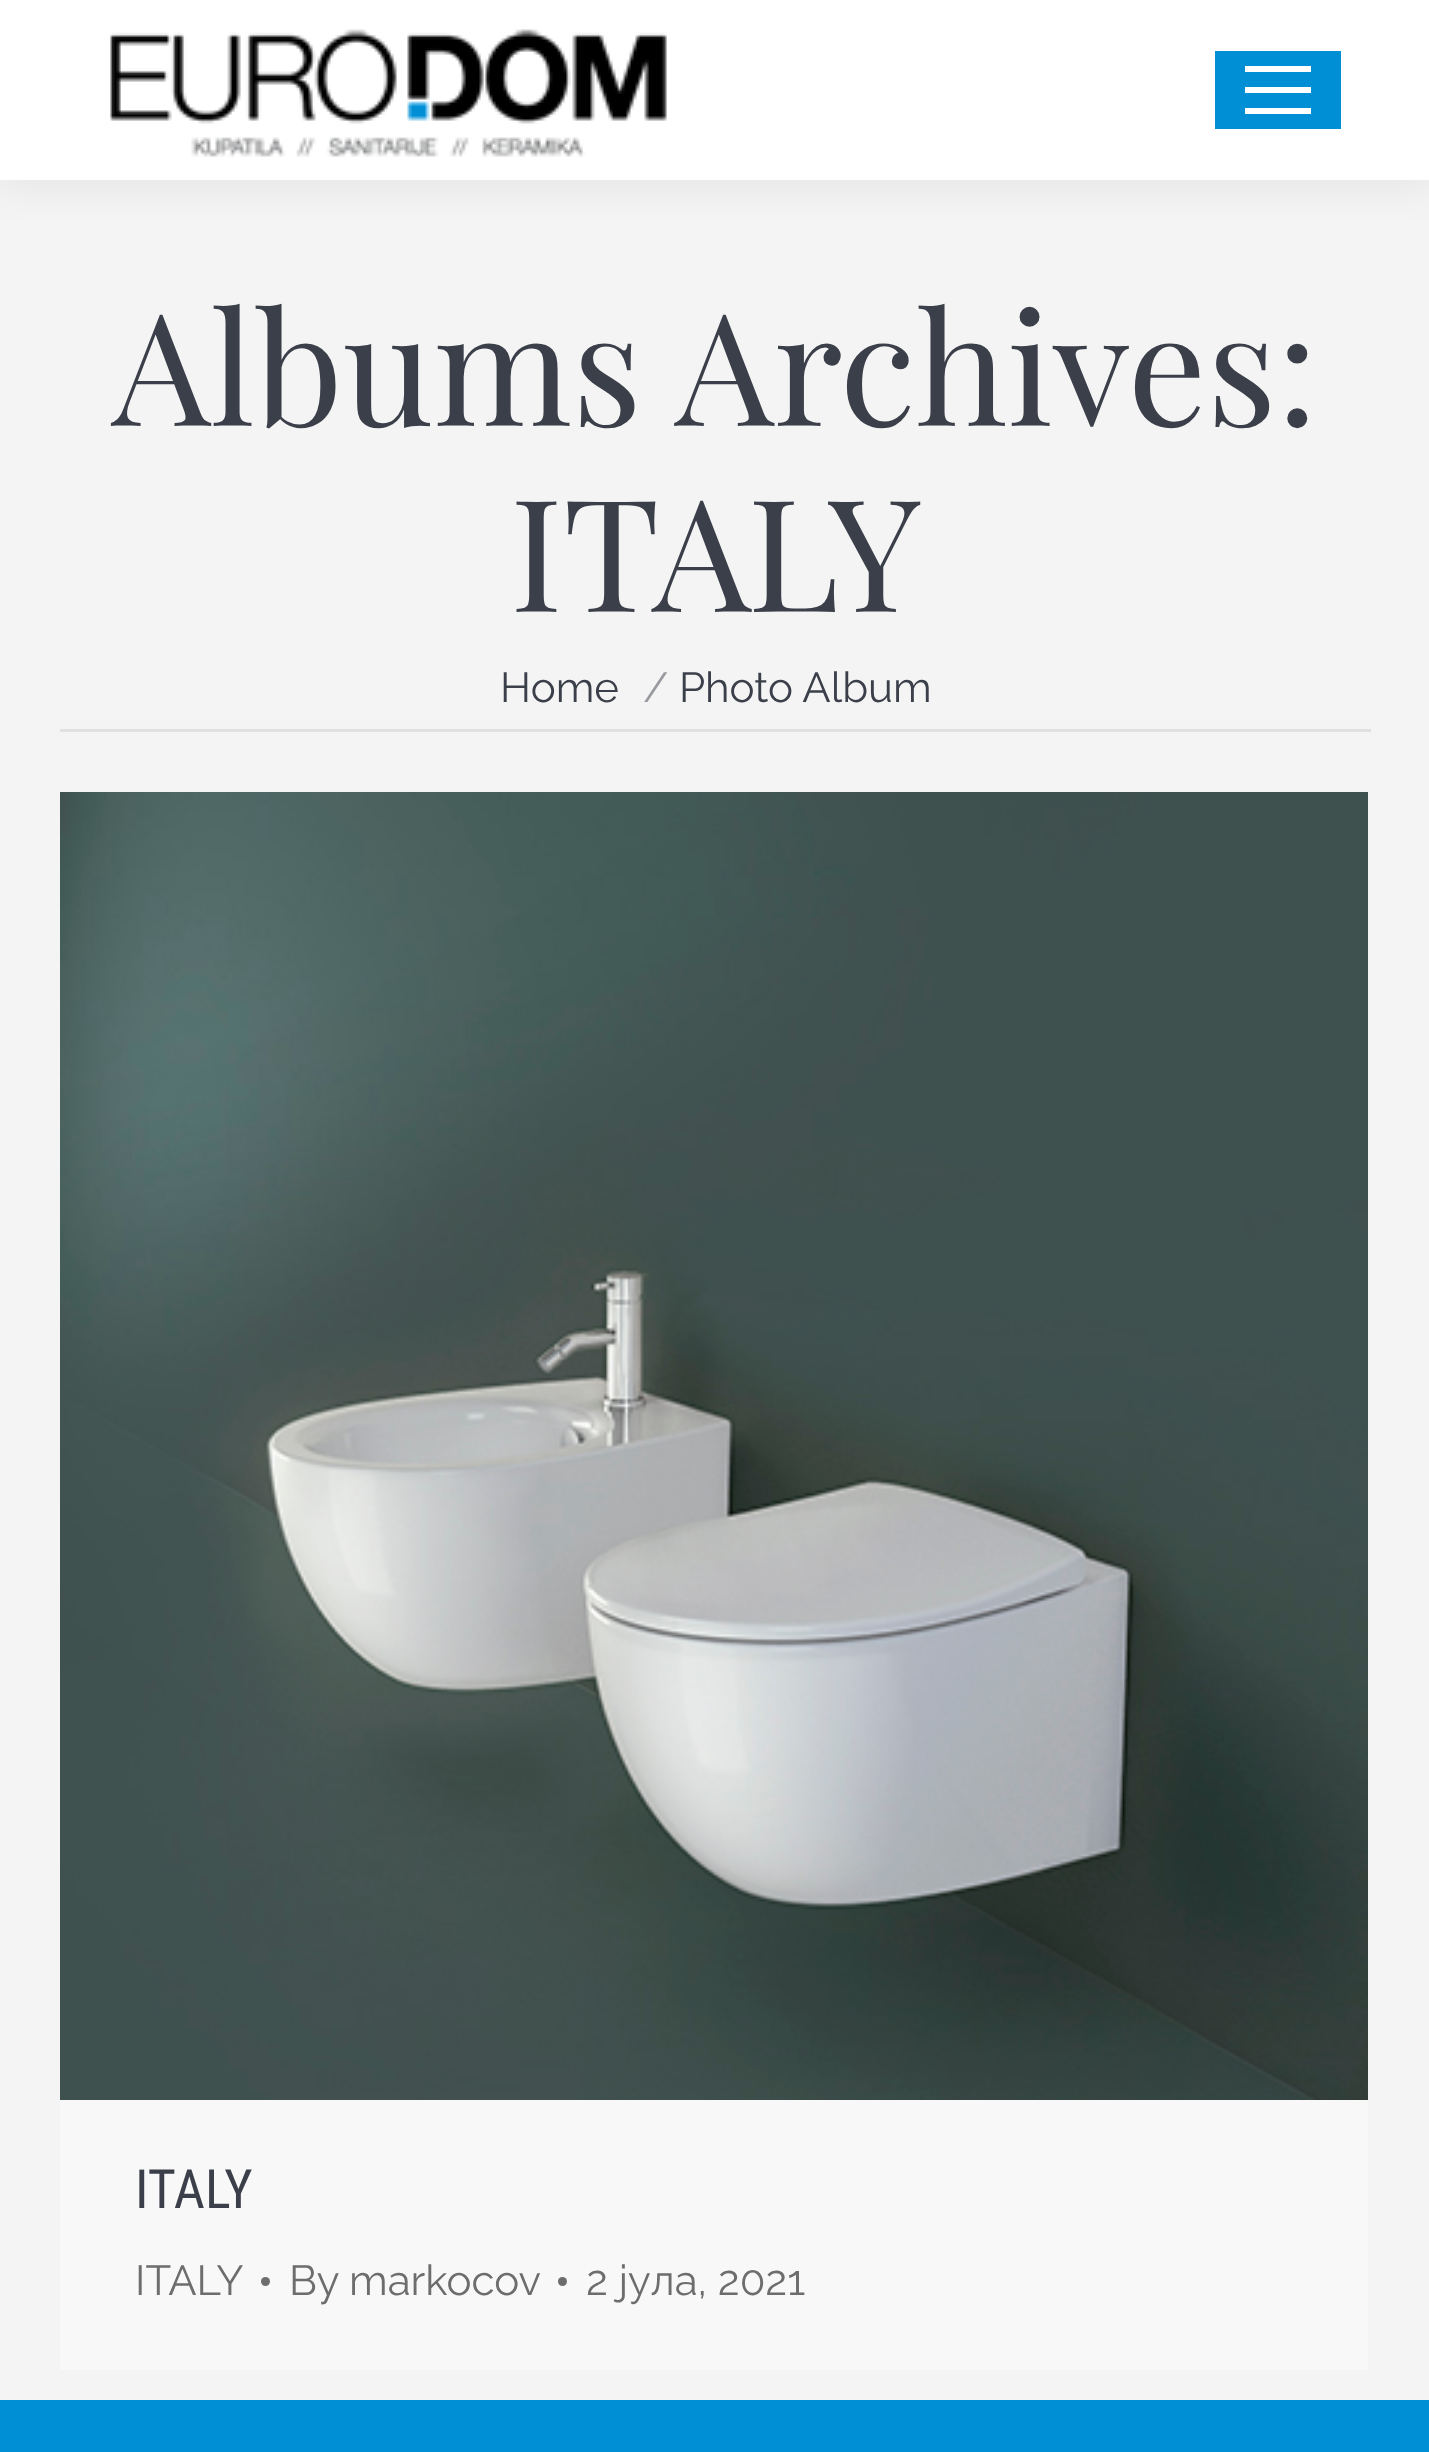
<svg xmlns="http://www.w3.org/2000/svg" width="1429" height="2452">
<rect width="100%" height="100%" fill="#f4f4f4"/>
<rect x="-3" y="-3" width="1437" height="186" fill="#00000012" filter="blur(22.5px)"/>
<rect width="1429" height="180" fill="#fff"/>
<image x="110" y="29" width="557" height="128" href="media/1.png"/>
<rect x="1215" y="51" width="126" height="78" fill="#008fd5"/>
<rect x="1245" y="66" width="66" height="6" fill="#fff"/>
<rect x="1245" y="87" width="66" height="6" fill="#fff"/>
<rect x="1245" y="108" width="66" height="6" fill="#fff"/>
<text x="112" y="426" style="font-family:Playfair Display;font-size:156px;fill:#3b3f4a">Albums Archives:</text>
<text x="510" y="612" style="font-family:Playfair Display;font-size:156px;fill:#3b3f4a">ITALY</text>
<text x="500" y="702" style="font-family:Raleway;font-size:42px;fill:#3b3f4a">Home</text>
<text x="643" y="702" style="font-family:Raleway;font-size:42px;fill:#989a9f">/</text>
<text x="679" y="702" style="font-family:Raleway;font-size:42px;fill:#3b3f4a">Photo Album</text>
<rect x="60" y="729" width="1311" height="3" fill="#dfe0e1"/>
<rect x="60" y="2100" width="1308" height="270" fill="#f8f8f9"/>
<image x="60" y="792" width="1308" height="1308" href="media/2.png"/>
<text x="135" y="2208" style="font-family:Roboto Condensed;font-size:54px;fill:#3b3f4a">ITALY</text>
<text x="135" y="2295" style="font-family:Raleway;font-size:42px;fill:#6d6d6d">ITALY</text>
<circle cx="265.5" cy="2281.5" r="4.5" fill="#6d6d6d"/>
<text x="289" y="2295" style="font-family:Raleway;font-size:42px;fill:#6d6d6d">By markocov</text>
<circle cx="562.5" cy="2281.5" r="4.5" fill="#6d6d6d"/>
<text x="586" y="2295" style="font-family:Raleway;font-size:42px;fill:#6d6d6d">2 јула, 2021</text>
<rect y="2400" width="1429" height="52" fill="#008fd5"/>
</svg>
